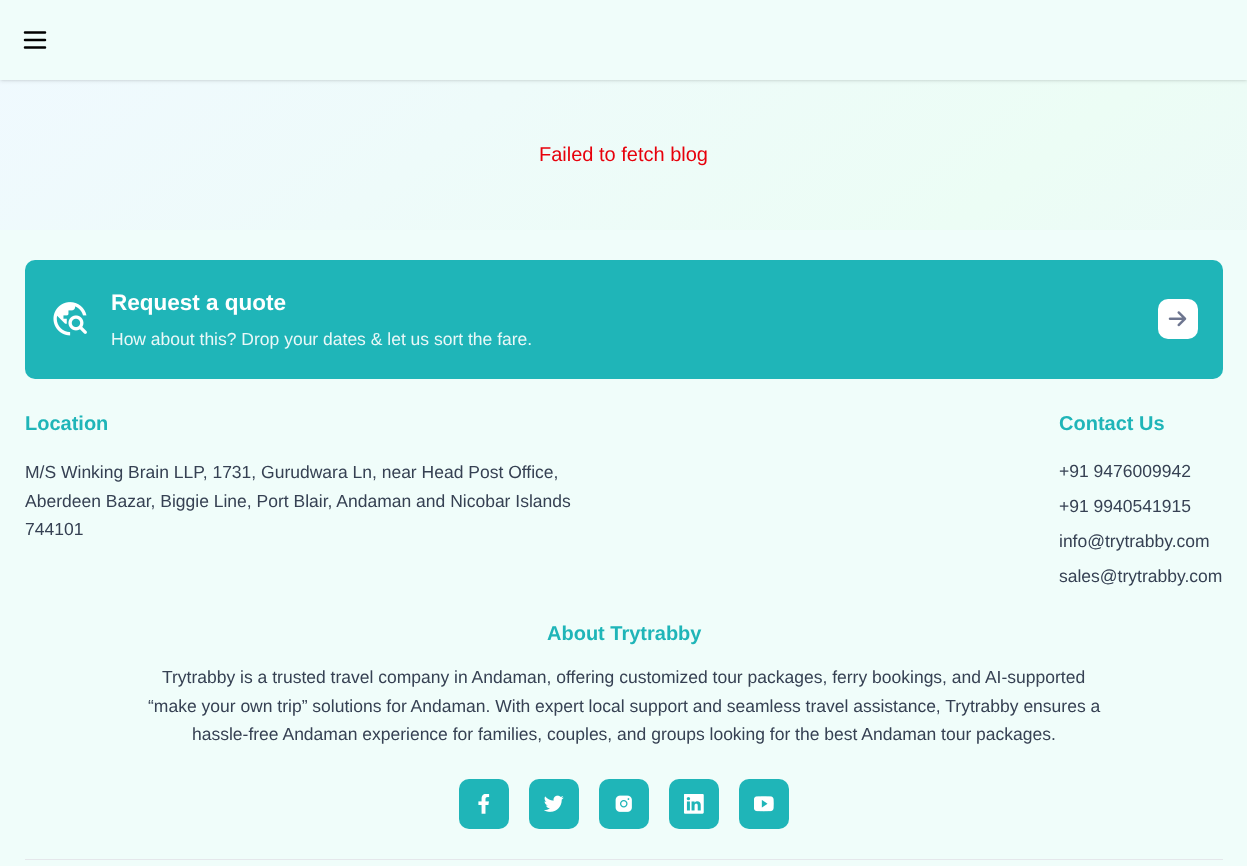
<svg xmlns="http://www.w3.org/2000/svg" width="1247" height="866">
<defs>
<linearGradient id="g1" gradientUnits="userSpaceOnUse" x1="157" y1="-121" x2="1091" y2="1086"><stop offset="0" stop-color="#f0f9ff"/><stop offset="0.5" stop-color="#ecfdf5"/><stop offset="1" stop-color="#eef2ff"/></linearGradient>
</defs>
<rect width="100%" height="100%" fill="#fff"/>
<rect y="80" width="1247" height="150" fill="url(#g1)"/>
<rect x="1" y="3" width="1245" height="77" fill="#0000001a" filter="blur(1px)"/>
<rect y="1" width="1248" height="80" fill="#0000001a" filter="blur(2px)"/>
<rect width="1247" height="80" fill="#f0fdfa"/>
<path d="M25 40h20m-20-7.5h20m-20 15h20" fill="none" stroke="#000" stroke-width="2.5" stroke-linecap="round" stroke-linejoin="round"/>
<text x="539" y="161" style="font-family:Liberation Sans;font-size:20px;fill:#e7000b">Failed to fetch blog</text>
<rect y="230" width="1247" height="636" fill="#f0fdfa"/>
<rect x="25" y="260" width="1198" height="119" rx="10" fill="#1fb5b8"/>
<image x="53" y="302" width="34" height="34" href="media/1.png"/>
<text x="111" y="310" style="font-family:Liberation Sans;font-size:22.5px;font-weight:bold;fill:#fff">Request a quote</text>
<text x="111" y="345" style="font-family:Liberation Sans;font-size:17.5px;fill:#e9f8f8">How about this? Drop your dates &amp; let us sort the fare.</text>
<rect x="1158" y="299" width="40" height="40" rx="10" fill="#fff"/>
<image x="1168" y="311" width="19" height="16" href="media/2.png"/>
<text x="25" y="430" style="font-family:Liberation Sans;font-size:20px;font-weight:bold;fill:#1fb5b8">Location</text>
<text x="25" y="478" style="font-family:Liberation Sans;font-size:17.5px;fill:#364153">M/S Winking Brain LLP, 1731, Gurudwara Ln, near Head Post Office,</text>
<text x="25" y="507" style="font-family:Liberation Sans;font-size:17.5px;fill:#364153">Aberdeen Bazar, Biggie Line, Port Blair, Andaman and Nicobar Islands</text>
<text x="25" y="535" style="font-family:Liberation Sans;font-size:17.5px;fill:#364153">744101</text>
<text x="1059" y="430" style="font-family:Liberation Sans;font-size:20px;font-weight:bold;fill:#1fb5b8">Contact Us</text>
<text x="1059" y="477" style="font-family:Liberation Sans;font-size:17.5px;fill:#364153">+91 9476009942</text>
<text x="1059" y="512" style="font-family:Liberation Sans;font-size:17.5px;fill:#364153">+91 9940541915</text>
<text x="1059" y="547" style="font-family:Liberation Sans;font-size:17.5px;fill:#364153">info@trytrabby.com</text>
<text x="1059" y="582" style="font-family:Liberation Sans;font-size:17.5px;fill:#364153">sales@trytrabby.com</text>
<text x="547" y="640" style="font-family:Liberation Sans;font-size:20px;font-weight:bold;fill:#1fb5b8">About Trytrabby</text>
<text x="162" y="683" style="font-family:Liberation Sans;font-size:17.5px;fill:#364153">Trytrabby is a trusted travel company in Andaman, offering customized tour packages, ferry bookings, and AI-supported</text>
<text x="148" y="712" style="font-family:Liberation Sans;font-size:17.5px;fill:#364153">“make your own trip” solutions for Andaman. With expert local support and seamless travel assistance, Trytrabby ensures a</text>
<text x="192" y="740" style="font-family:Liberation Sans;font-size:17.5px;fill:#364153">hassle-free Andaman experience for families, couples, and groups looking for the best Andaman tour packages.</text>
<rect x="459" y="779" width="50" height="50" rx="10" fill="#1fb5b8"/>
<image x="478" y="794" width="12" height="20" href="media/3.png"/>
<rect x="529" y="779" width="50" height="50" rx="10" fill="#1fb5b8"/>
<image x="544" y="795" width="20" height="17" href="media/4.png"/>
<rect x="599" y="779" width="50" height="50" rx="10" fill="#1fb5b8"/>
<image x="615" y="795" width="17" height="17" href="media/5.png"/>
<rect x="669" y="779" width="50" height="50" rx="10" fill="#1fb5b8"/>
<image x="684" y="794" width="20" height="20" href="media/6.png"/>
<rect x="739" y="779" width="50" height="50" rx="10" fill="#1fb5b8"/>
<image x="754" y="796" width="20" height="16" href="media/7.png"/>
<rect x="25" y="859" width="1198" height="1" fill="#e5e7eb"/>
</svg>
